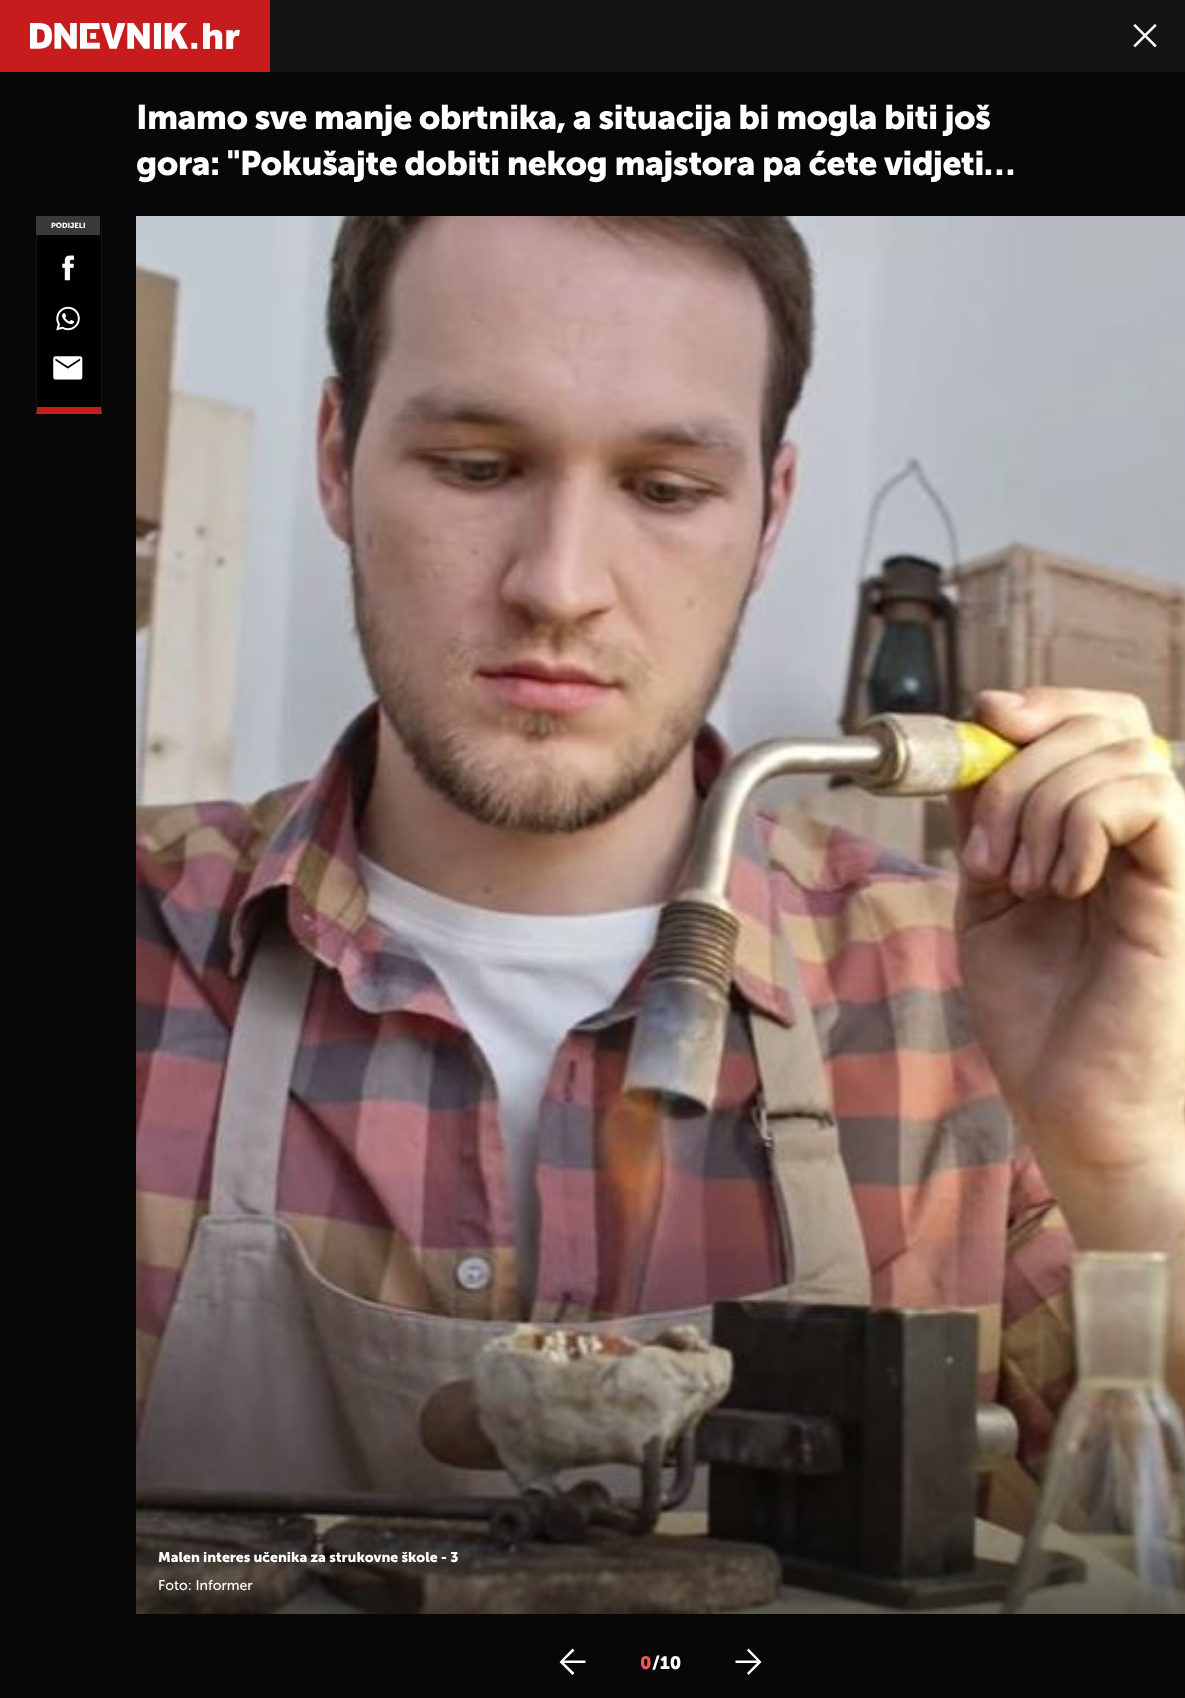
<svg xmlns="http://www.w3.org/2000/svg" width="1185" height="1698">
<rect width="100%" height="100%" fill="#070707"/>
<rect x="270" width="915" height="72" fill="#141414"/>
<rect width="270" height="72" fill="#c71c1d"/>
<image x="30" y="23" width="210" height="26" href="media/1.png"/>
<image x="1133" y="24" width="24" height="24" href="media/2.png"/>
<text x="136" y="129" style="font-family:Museo Sans;font-size:34px;letter-spacing:-0.68px;fill:#fff">Imamo sve manje obrtnika, a situacija bi mogla biti još</text>
<text x="136" y="175" style="font-family:Museo Sans;font-size:34px;letter-spacing:-0.68px;fill:#fff">gora: "Pokušajte dobiti nekog majstora pa ćete vidjeti…</text>
<rect x="37" y="219" width="64" height="188" fill="#000"/>
<rect x="100" y="218" width="2" height="1" fill="#141414"/>
<path d="M102 218v196l-1-7v-188z" fill="#141414"/>
<path d="M102 414h-66l1-7h64z" fill="#c71c1d"/>
<path d="M36 414v-196l1 1v188z" fill="#141414"/>
<rect x="36" y="216" width="64" height="19" fill="#3a3a3a"/>
<text x="51" y="228" style="font-family:Museo Sans;font-size:7.5px;fill:#fff">PODIJELI</text>
<image x="62" y="255" width="12" height="26" href="media/3.png"/>
<image x="56" y="306" width="24" height="25" href="media/4.png"/>
<image x="53" y="356" width="30" height="24" href="media/5.png"/>
<image x="136" y="216" width="1049" height="1398" href="media/6.png"/>
<text x="158" y="1562" style="font-family:Museo Sans;font-size:14px;fill:#fff">Malen interes učenika za strukovne škole - 3</text>
<text x="158" y="1590" style="font-family:'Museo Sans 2';font-size:14px;fill:#fff">Foto: Informer</text>
<path d="M572.5 1675l2-2l-10.5-10h21.5v-2.5h-21.5l10.5-10l-2-2l-13 13.5z" fill="#fff"/>
<text x="640" y="1669" style="font-family:Museo Sans;font-size:18px;fill:#e95858">0</text>
<text x="652" y="1669" style="font-family:Museo Sans;font-size:18px;fill:#fff">/10</text>
<path d="M748.5 1675l-1.5-2l10-10h-21.5v-2.5h21.5l-10-10l1.5-2l13 13.5z" fill="#fff"/>
</svg>
